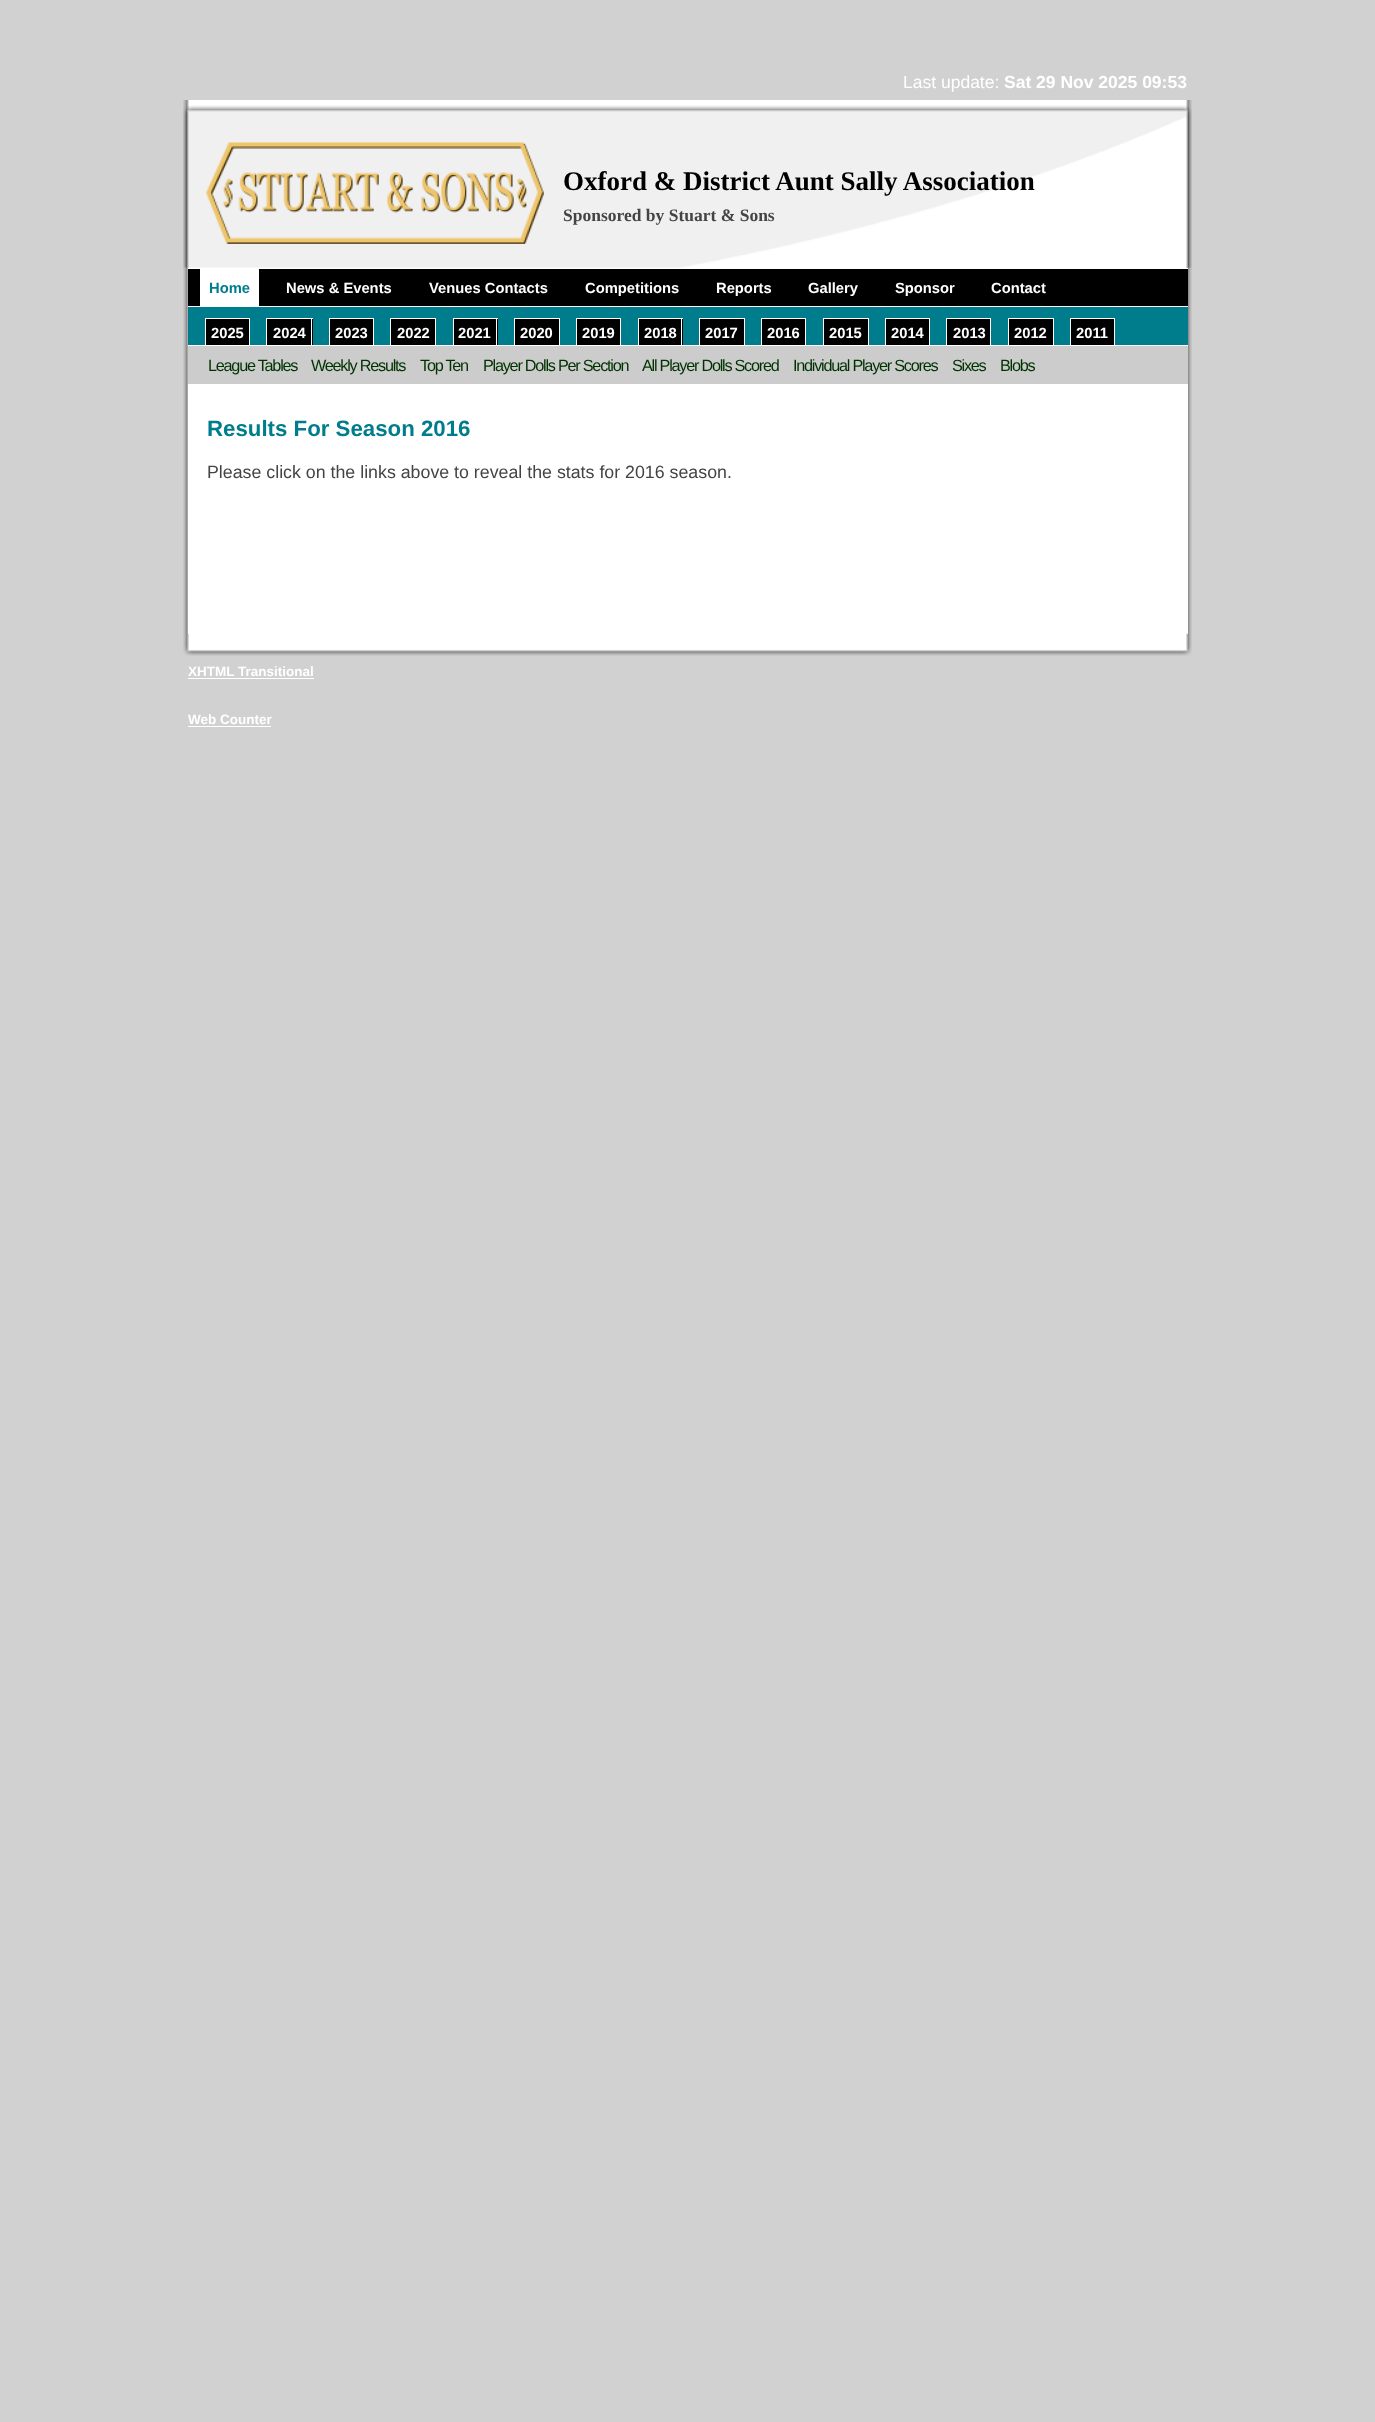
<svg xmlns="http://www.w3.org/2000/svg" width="1375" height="2422">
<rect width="100%" height="100%" fill="#d1d1d1"/>
<image x="183" y="100" width="1009" height="534" href="media/1.png"/>
<text x="903" y="88" style="font-family:Liberation Sans;font-size:17.5px;fill:#fff">Last update:</text>
<text x="1004" y="88" style="font-family:Liberation Sans;font-size:17.5px;font-weight:bold;fill:#fff">Sat 29 Nov 2025 09:53</text>
<image x="183" y="105" width="1009" height="163" href="media/2.png"/>
<image x="206" y="142" width="338" height="102" href="media/3.png"/>
<text x="563" y="190" style="font-family:Liberation Serif;font-size:27px;font-weight:bold;fill:#000">Oxford &amp; District Aunt Sally Association</text>
<text x="563" y="221" style="font-family:Liberation Serif;font-size:17.5px;font-weight:bold;fill:#444">Sponsored by Stuart &amp; Sons</text>
<rect x="188" y="269" width="1000" height="37" fill="#000"/>
<rect x="188" y="268" width="1000" height="1" fill="#fff"/>
<rect x="200" y="269" width="59" height="37" fill="#fff"/>
<text x="209" y="293" style="font-family:Liberation Sans;font-size:14.75px;font-weight:bold;fill:#007d8c">Home</text>
<text x="286" y="293" style="font-family:Liberation Sans;font-size:14.75px;font-weight:bold;fill:#fff">News &amp; Events</text>
<text x="429" y="293" style="font-family:Liberation Sans;font-size:14.75px;font-weight:bold;fill:#fff">Venues Contacts</text>
<text x="585" y="293" style="font-family:Liberation Sans;font-size:14.75px;font-weight:bold;fill:#fff">Competitions</text>
<text x="716" y="293" style="font-family:Liberation Sans;font-size:14.75px;font-weight:bold;fill:#fff">Reports</text>
<text x="808" y="293" style="font-family:Liberation Sans;font-size:14.75px;font-weight:bold;fill:#fff">Gallery</text>
<text x="895" y="293" style="font-family:Liberation Sans;font-size:14.75px;font-weight:bold;fill:#fff">Sponsor</text>
<text x="991" y="293" style="font-family:Liberation Sans;font-size:14.75px;font-weight:bold;fill:#fff">Contact</text>
<rect x="188" y="307" width="1000" height="38" fill="#007d8c"/>
<rect x="188" y="306" width="1000" height="1" fill="#fff"/>
<rect x="206" y="319" width="43" height="26" fill="#000"/>
<rect x="205" y="318" width="45" height="1" fill="#fff"/>
<rect x="249" y="318" width="1" height="28" fill="#fff"/>
<rect x="205" y="318" width="1" height="28" fill="#fff"/>
<text x="211" y="338" style="font-family:Liberation Sans;font-size:14.75px;font-weight:bold;fill:#fff">2025</text>
<rect x="267" y="319" width="46" height="26" fill="#000"/>
<rect x="266" y="318" width="47" height="1" fill="#fff"/>
<rect x="311" y="318" width="1" height="28" fill="#fff"/>
<rect x="266" y="318" width="1" height="28" fill="#fff"/>
<text x="273" y="338" style="font-family:Liberation Sans;font-size:14.75px;font-weight:bold;fill:#fff">2024</text>
<rect x="330" y="319" width="43" height="26" fill="#000"/>
<rect x="329" y="318" width="45" height="1" fill="#fff"/>
<rect x="373" y="318" width="1" height="28" fill="#fff"/>
<rect x="329" y="318" width="1" height="28" fill="#fff"/>
<text x="335" y="338" style="font-family:Liberation Sans;font-size:14.75px;font-weight:bold;fill:#fff">2023</text>
<rect x="391" y="319" width="44" height="26" fill="#000"/>
<rect x="390" y="318" width="46" height="1" fill="#fff"/>
<rect x="435" y="318" width="1" height="28" fill="#fff"/>
<rect x="390" y="318" width="1" height="28" fill="#fff"/>
<text x="397" y="338" style="font-family:Liberation Sans;font-size:14.75px;font-weight:bold;fill:#fff">2022</text>
<rect x="454" y="319" width="44" height="26" fill="#000"/>
<rect x="453" y="318" width="45" height="1" fill="#fff"/>
<rect x="496" y="318" width="1" height="28" fill="#fff"/>
<rect x="453" y="318" width="1" height="28" fill="#fff"/>
<text x="458" y="338" style="font-family:Liberation Sans;font-size:14.75px;font-weight:bold;fill:#fff">2021</text>
<rect x="515" y="319" width="44" height="26" fill="#000"/>
<rect x="514" y="318" width="46" height="1" fill="#fff"/>
<rect x="559" y="318" width="1" height="28" fill="#fff"/>
<rect x="514" y="318" width="1" height="28" fill="#fff"/>
<text x="520" y="338" style="font-family:Liberation Sans;font-size:14.75px;font-weight:bold;fill:#fff">2020</text>
<rect x="577" y="319" width="43" height="26" fill="#000"/>
<rect x="576" y="318" width="45" height="1" fill="#fff"/>
<rect x="620" y="318" width="1" height="28" fill="#fff"/>
<rect x="576" y="318" width="1" height="28" fill="#fff"/>
<text x="582" y="338" style="font-family:Liberation Sans;font-size:14.75px;font-weight:bold;fill:#fff">2019</text>
<rect x="639" y="319" width="44" height="26" fill="#000"/>
<rect x="638" y="318" width="45" height="1" fill="#fff"/>
<rect x="681" y="318" width="1" height="28" fill="#fff"/>
<rect x="638" y="318" width="1" height="28" fill="#fff"/>
<text x="644" y="338" style="font-family:Liberation Sans;font-size:14.75px;font-weight:bold;fill:#fff">2018</text>
<rect x="700" y="319" width="44" height="26" fill="#000"/>
<rect x="699" y="318" width="46" height="1" fill="#fff"/>
<rect x="744" y="318" width="1" height="28" fill="#fff"/>
<rect x="699" y="318" width="1" height="28" fill="#fff"/>
<text x="705" y="338" style="font-family:Liberation Sans;font-size:14.75px;font-weight:bold;fill:#fff">2017</text>
<rect x="762" y="319" width="43" height="26" fill="#000"/>
<rect x="761" y="318" width="45" height="1" fill="#fff"/>
<rect x="805" y="318" width="1" height="28" fill="#fff"/>
<rect x="761" y="318" width="1" height="28" fill="#fff"/>
<text x="767" y="338" style="font-family:Liberation Sans;font-size:14.75px;font-weight:bold;fill:#fff">2016</text>
<rect x="824" y="319" width="44" height="26" fill="#000"/>
<rect x="823" y="318" width="46" height="1" fill="#fff"/>
<rect x="868" y="318" width="1" height="28" fill="#fff"/>
<rect x="823" y="318" width="1" height="28" fill="#fff"/>
<text x="829" y="338" style="font-family:Liberation Sans;font-size:14.75px;font-weight:bold;fill:#fff">2015</text>
<rect x="886" y="319" width="43" height="26" fill="#000"/>
<rect x="885" y="318" width="45" height="1" fill="#fff"/>
<rect x="929" y="318" width="1" height="28" fill="#fff"/>
<rect x="885" y="318" width="1" height="28" fill="#fff"/>
<text x="891" y="338" style="font-family:Liberation Sans;font-size:14.75px;font-weight:bold;fill:#fff">2014</text>
<rect x="947" y="319" width="43" height="26" fill="#000"/>
<rect x="946" y="318" width="45" height="1" fill="#fff"/>
<rect x="990" y="318" width="1" height="28" fill="#fff"/>
<rect x="946" y="318" width="1" height="28" fill="#fff"/>
<text x="953" y="338" style="font-family:Liberation Sans;font-size:14.75px;font-weight:bold;fill:#fff">2013</text>
<rect x="1009" y="319" width="44" height="26" fill="#000"/>
<rect x="1008" y="318" width="46" height="1" fill="#fff"/>
<rect x="1053" y="318" width="1" height="28" fill="#fff"/>
<rect x="1008" y="318" width="1" height="28" fill="#fff"/>
<text x="1014" y="338" style="font-family:Liberation Sans;font-size:14.75px;font-weight:bold;fill:#fff">2012</text>
<rect x="1071" y="319" width="43" height="26" fill="#000"/>
<rect x="1070" y="318" width="45" height="1" fill="#fff"/>
<rect x="1114" y="318" width="1" height="28" fill="#fff"/>
<rect x="1070" y="318" width="1" height="28" fill="#fff"/>
<text x="1076" y="338" style="font-family:Liberation Sans;font-size:14.75px;font-weight:bold;fill:#fff">2011</text>
<rect x="188" y="346" width="1000" height="38" fill="#ccc"/>
<rect x="188" y="345" width="1000" height="1" fill="#fff"/>
<text x="208" y="371" style="font-family:Liberation Sans;font-size:16.25px;letter-spacing:-1.25px;fill:#030">League Tables</text>
<text x="311" y="371" style="font-family:Liberation Sans;font-size:16.25px;letter-spacing:-1.25px;fill:#030">Weekly Results</text>
<text x="420" y="371" style="font-family:Liberation Sans;font-size:16.25px;letter-spacing:-1.25px;fill:#030">Top Ten</text>
<text x="483" y="371" style="font-family:Liberation Sans;font-size:16.25px;letter-spacing:-1.25px;fill:#030">Player Dolls Per Section</text>
<text x="642" y="371" style="font-family:Liberation Sans;font-size:16.25px;letter-spacing:-1.25px;fill:#030">All Player Dolls Scored</text>
<text x="793" y="371" style="font-family:Liberation Sans;font-size:16.25px;letter-spacing:-1.25px;fill:#030">Individual Player Scores</text>
<text x="952" y="371" style="font-family:Liberation Sans;font-size:16.25px;letter-spacing:-1.25px;fill:#030">Sixes</text>
<text x="1000" y="371" style="font-family:Liberation Sans;font-size:16.25px;letter-spacing:-1.25px;fill:#030">Blobs</text>
<rect x="188" y="384" width="1000" height="250" fill="#fff"/>
<text x="207" y="436" style="font-family:Liberation Sans;font-size:22.25px;font-weight:bold;fill:#007d8c">Results For Season 2016</text>
<text x="207" y="478" style="font-family:Liberation Sans;font-size:17.8px;fill:#444">Please click on the links above to reveal the stats for 2016 season.</text>
<image x="183" y="633" width="1009" height="23" href="media/4.png"/>
<text x="188" y="676" style="font-family:Liberation Sans;font-size:13.5px;font-weight:bold;fill:#fff">XHTML Transitional</text>
<rect x="188" y="678" width="126" height="1" fill="#fff"/>
<text x="188" y="724" style="font-family:Liberation Sans;font-size:13.5px;font-weight:bold;fill:#fff">Web Counter</text>
<rect x="188" y="726" width="83" height="1" fill="#fff"/>
</svg>
